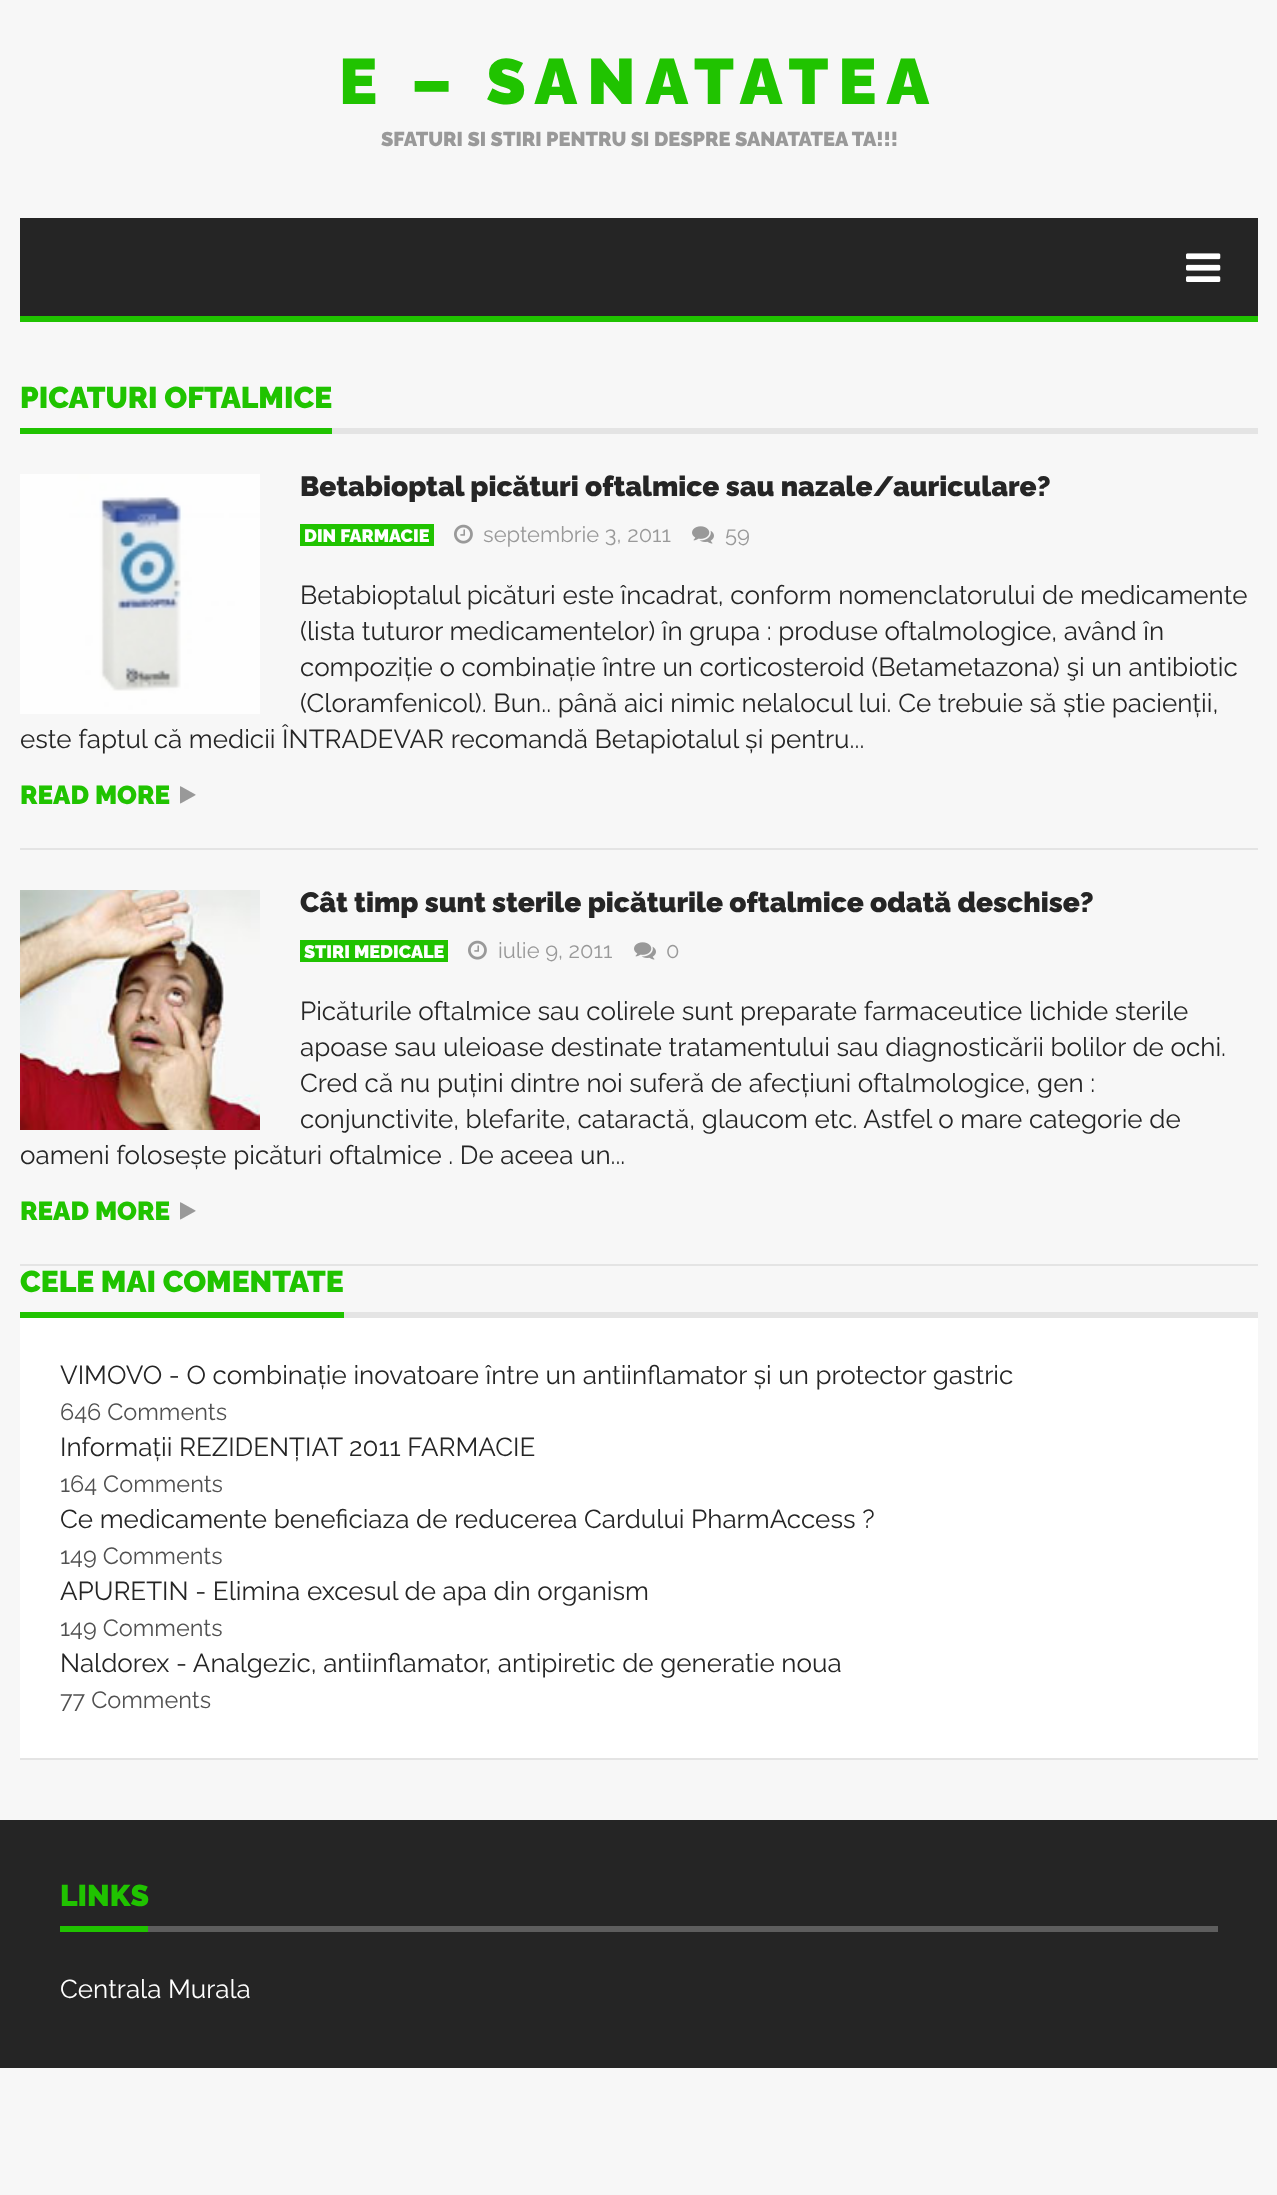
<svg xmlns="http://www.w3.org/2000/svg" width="1277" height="2195">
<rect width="100%" height="100%" fill="#f7f7f7"/>
<text x="339" y="104" style="font-family:Raleway;font-size:64px;font-weight:900;letter-spacing:10px;fill:#20c300">E – SANATATEA</text>
<text x="381" y="146" style="font-family:Raleway;font-size:20px;font-weight:900;fill:#999">SFATURI SI STIRI PENTRU SI DESPRE SANATATEA TA!!!</text>
<rect x="20" y="316" width="1238" height="6" fill="#20c300"/>
<rect x="20" y="218" width="1238" height="98" fill="#252525"/>
<image x="1186" y="253" width="35" height="29" href="media/1.png"/>
<rect x="332" y="428" width="926" height="6" fill="#e4e4e4"/>
<rect x="20" y="428" width="312" height="6" fill="#20c300"/>
<text x="20" y="408" style="font-family:Raleway;font-size:30px;font-weight:900;fill:#20c300">PICATURI OFTALMICE</text>
<rect x="20" y="848" width="1238" height="2" fill="#e4e4e4"/>
<image x="20" y="474" width="240" height="240" href="media/2.png"/>
<text x="300" y="496" style="font-family:Raleway;font-size:28px;font-weight:900;fill:#252525">Betabioptal picături oftalmice sau nazale/auriculare?</text>
<rect x="300" y="524" width="134" height="22" fill="#20c300"/>
<text x="304" y="542" style="font-family:Raleway;font-size:18px;font-weight:900;fill:#fff">DIN FARMACIE</text>
<image x="454" y="524" width="19" height="20" href="media/3.png"/>
<text x="483" y="542" style="font-family:Raleway;font-size:22px;fill:#999">septembrie 3, 2011</text>
<image x="692" y="526" width="22" height="18" href="media/4.png"/>
<text x="725" y="542" style="font-family:Raleway;font-size:22px;fill:#999">59</text>
<text x="300" y="604" style="font-family:Raleway;font-size:26px;fill:#252525">Betabioptalul picături este încadrat, conform nomenclatorului de medicamente</text>
<text x="300" y="640" style="font-family:Raleway;font-size:26px;fill:#252525">(lista tuturor medicamentelor) în grupa : produse oftalmologice, având în</text>
<text x="300" y="676" style="font-family:Raleway;font-size:26px;fill:#252525">compoziție o combinație între un corticosteroid (Betametazona) şi un antibiotic</text>
<text x="300" y="712" style="font-family:Raleway;font-size:26px;fill:#252525">(Cloramfenicol). Bun.. până aici nimic nelalocul lui. Ce trebuie să știe pacienții,</text>
<text x="20" y="748" style="font-family:Raleway;font-size:26px;fill:#252525">este faptul că medicii ÎNTRADEVAR recomandă Betapiotalul și pentru...</text>
<text x="20" y="804" style="font-family:Raleway;font-size:26px;font-weight:900;fill:#20c300">READ MORE</text>
<image x="180" y="786" width="16" height="18" href="media/5.png"/>
<rect x="20" y="1264" width="1238" height="2" fill="#e4e4e4"/>
<image x="20" y="890" width="240" height="240" href="media/6.png"/>
<text x="300" y="912" style="font-family:Raleway;font-size:28px;font-weight:900;fill:#252525">Cât timp sunt sterile picăturile oftalmice odată deschise?</text>
<rect x="300" y="940" width="148" height="22" fill="#20c300"/>
<text x="304" y="958" style="font-family:Raleway;font-size:18px;font-weight:900;fill:#fff">STIRI MEDICALE</text>
<image x="468" y="940" width="19" height="20" href="media/3.png"/>
<text x="498" y="958" style="font-family:Raleway;font-size:22px;fill:#999">iulie 9, 2011</text>
<image x="634" y="942" width="22" height="18" href="media/4.png"/>
<text x="666" y="958" style="font-family:Raleway;font-size:22px;fill:#999">0</text>
<text x="300" y="1020" style="font-family:Raleway;font-size:26px;fill:#252525">Picăturile oftalmice sau colirele sunt preparate farmaceutice lichide sterile</text>
<text x="300" y="1056" style="font-family:Raleway;font-size:26px;fill:#252525">apoase sau uleioase destinate tratamentului sau diagnosticării bolilor de ochi.</text>
<text x="300" y="1092" style="font-family:Raleway;font-size:26px;fill:#252525">Cred că nu puțini dintre noi suferă de afecțiuni oftalmologice, gen :</text>
<text x="300" y="1128" style="font-family:Raleway;font-size:26px;fill:#252525">conjunctivite, blefarite, cataractă, glaucom etc. Astfel o mare categorie de</text>
<text x="20" y="1164" style="font-family:Raleway;font-size:26px;fill:#252525">oameni folosește picături oftalmice . De aceea un...</text>
<text x="20" y="1220" style="font-family:Raleway;font-size:26px;font-weight:900;fill:#20c300">READ MORE</text>
<image x="180" y="1202" width="16" height="18" href="media/5.png"/>
<rect x="344" y="1312" width="914" height="6" fill="#e4e4e4"/>
<rect x="20" y="1312" width="324" height="6" fill="#20c300"/>
<text x="20" y="1292" style="font-family:Raleway;font-size:30px;font-weight:900;fill:#20c300">CELE MAI COMENTATE</text>
<rect x="20" y="1318" width="1238" height="440" fill="#fff"/>
<rect x="20" y="1758" width="1238" height="2" fill="#e4e4e4"/>
<text x="60" y="1384" style="font-family:Raleway;font-size:26px;fill:#252525">VIMOVO - O combinație inovatoare între un antiinflamator și un protector gastric</text>
<text x="60" y="1420" style="font-family:Raleway;font-size:23.5px;fill:#515151">646 Comments</text>
<text x="60" y="1456" style="font-family:Raleway;font-size:26px;fill:#252525">Informații REZIDENȚIAT 2011 FARMACIE</text>
<text x="60" y="1492" style="font-family:Raleway;font-size:23.5px;fill:#515151">164 Comments</text>
<text x="60" y="1528" style="font-family:Raleway;font-size:26px;fill:#252525">Ce medicamente beneficiaza de reducerea Cardului PharmAccess ?</text>
<text x="60" y="1564" style="font-family:Raleway;font-size:23.5px;fill:#515151">149 Comments</text>
<text x="60" y="1600" style="font-family:Raleway;font-size:26px;fill:#252525">APURETIN - Elimina excesul de apa din organism</text>
<text x="60" y="1636" style="font-family:Raleway;font-size:23.5px;fill:#515151">149 Comments</text>
<text x="60" y="1672" style="font-family:Raleway;font-size:26px;fill:#252525">Naldorex - Analgezic, antiinflamator, antipiretic de generatie noua</text>
<text x="60" y="1708" style="font-family:Raleway;font-size:23.5px;fill:#515151">77 Comments</text>
<rect y="1820" width="1277" height="248" fill="#252525"/>
<rect x="148" y="1926" width="1070" height="6" fill="#5e5e5e"/>
<rect x="60" y="1926" width="88" height="6" fill="#20c300"/>
<text x="60" y="1906" style="font-family:Raleway;font-size:30px;font-weight:900;fill:#20c300">LINKS</text>
<text x="60" y="1998" style="font-family:Raleway;font-size:26px;fill:#fff">Centrala Murala</text>
</svg>
